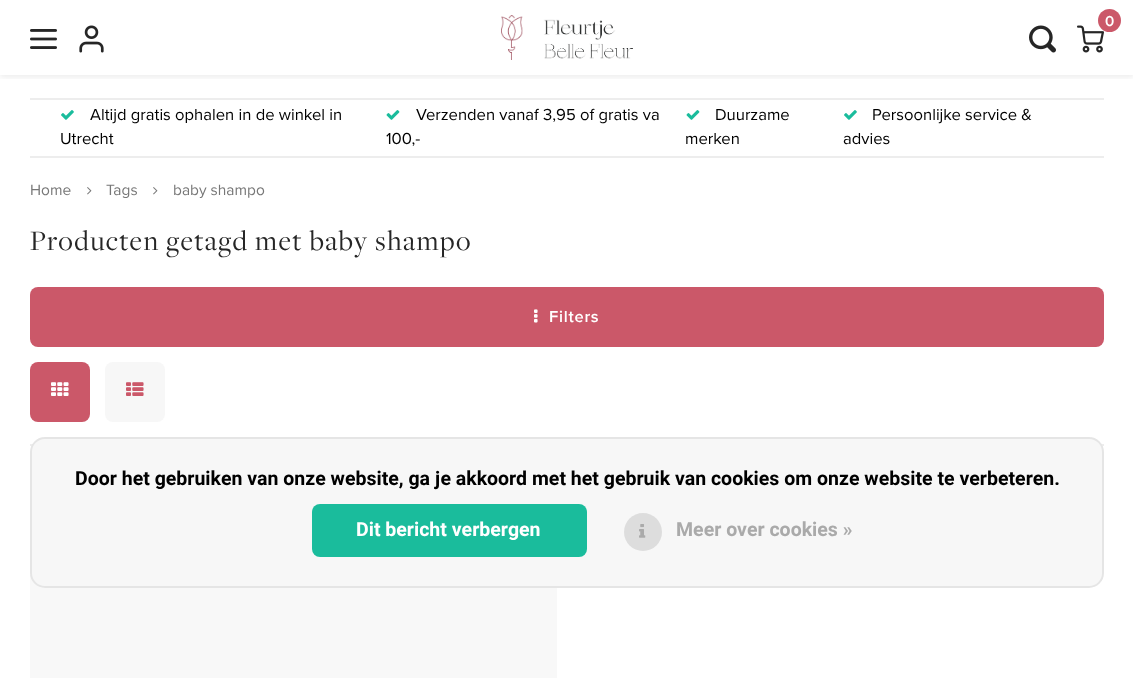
<svg xmlns="http://www.w3.org/2000/svg" width="1133" height="678">
<defs>
<clipPath id="clip1"><rect x="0" y="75" width="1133" height="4"/></clipPath>
</defs>
<rect width="100%" height="100%" fill="#fff"/>
<g clip-path="url(#clip1)">
<rect y="2" width="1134" height="75" fill="#00000014" filter="blur(3px)"/>
</g>
<image x="501" y="15" width="132" height="45" href="media/1.png"/>
<image x="1077" y="25" width="27" height="28" href="media/2.png"/>
<circle cx="1109.5" cy="20.5" r="11.5" fill="#cb5869"/>
<text x="1105" y="26" style="font-family:Proxima Nova;font-size:15px;font-weight:600;fill:#fff">0</text>
<image x="1029" y="25" width="27" height="28" href="media/3.png"/>
<image x="30" y="29" width="27" height="20" href="media/4.png"/>
<image x="79" y="25" width="25" height="28" href="media/5.png"/>
<rect x="30" y="98" width="1074" height="2" fill="#ededed"/>
<rect x="30" y="156" width="1074" height="2" fill="#ededed"/>
<image x="61" y="110" width="13" height="10" href="media/6.png"/>
<text x="90" y="120" style="font-family:Proxima Nova;font-size:16.6px;fill:#000">Altijd gratis ophalen in de winkel in</text>
<text x="60" y="144" style="font-family:Proxima Nova;font-size:16.6px;fill:#000">Utrecht</text>
<image x="386" y="110" width="14" height="10" href="media/7.png"/>
<text x="416" y="120" style="font-family:Proxima Nova;font-size:16.6px;fill:#000">Verzenden vanaf 3,95 of gratis va</text>
<text x="386" y="144" style="font-family:Proxima Nova;font-size:16.6px;fill:#000">100,-</text>
<image x="686" y="110" width="14" height="10" href="media/7.png"/>
<text x="715" y="120" style="font-family:Proxima Nova;font-size:16.6px;fill:#000">Duurzame</text>
<text x="685" y="144" style="font-family:Proxima Nova;font-size:16.6px;fill:#000">merken</text>
<image x="844" y="110" width="13" height="10" href="media/6.png"/>
<text x="872" y="120" style="font-family:Proxima Nova;font-size:16.6px;fill:#000">Persoonlijke service &amp;</text>
<text x="843" y="144" style="font-family:Proxima Nova;font-size:16.6px;fill:#000">advies</text>
<text x="30" y="195" style="font-family:Proxima Nova;font-size:15.5px;fill:#777">Home</text>
<image x="87" y="187" width="5" height="8" href="media/8.png"/>
<text x="106" y="195" style="font-family:Proxima Nova;font-size:15.5px;fill:#777">Tags</text>
<image x="153" y="187" width="5" height="8" href="media/8.png"/>
<text x="173" y="195" style="font-family:Proxima Nova;font-size:15.5px;fill:#777">baby shampo</text>
<text x="30" y="250" style="font-family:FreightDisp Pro;font-size:29.25px;letter-spacing:1.45px;fill:#262626">Producten getagd met baby shampo</text>
<rect x="30" y="444" width="1074" height="2" fill="#ededed"/>
<rect x="30" y="287" width="1074" height="60" rx="8" fill="#cb5869"/>
<image x="534" y="309" width="4" height="14" href="media/9.png"/>
<text x="549" y="322" style="font-family:Proxima Nova;font-size:16.5px;font-weight:600;letter-spacing:0.75px;fill:#fff">Filters</text>
<rect x="30" y="362" width="60" height="60" rx="8" fill="#cb5869"/>
<image x="51" y="382" width="18" height="14" href="media/10.png"/>
<rect x="105" y="362" width="60" height="60" rx="8" fill="#f7f7f7"/>
<image x="126" y="382" width="18" height="14" href="media/11.png"/>
<rect x="30" y="573" width="527" height="105" fill="#f8f8f8"/>
<rect x="30" y="437" width="1074" height="151" rx="15" fill="#f7f7f7"/>
<rect x="31" y="438" width="1072" height="149" rx="14" fill="none" stroke="#00000012" stroke-width="2"/>
<text x="75" y="485" style="font-family:Heebo;font-size:19.5px;font-weight:bold;fill:#000">Door het gebruiken van onze website, ga je akkoord met het gebruik van cookies om onze website te verbeteren.</text>
<rect x="312" y="504" width="275" height="53" rx="8" fill="#1abc9c"/>
<text x="356" y="536" style="font-family:Heebo;font-size:19.5px;font-weight:bold;fill:#fff">Dit bericht verbergen</text>
<circle cx="643" cy="532" r="19" fill="#ddd"/>
<image x="639" y="524" width="7" height="14" href="media/12.png"/>
<text x="676" y="536" style="font-family:Heebo;font-size:19.5px;font-weight:bold;fill:#aaa">Meer over cookies »</text>
</svg>
